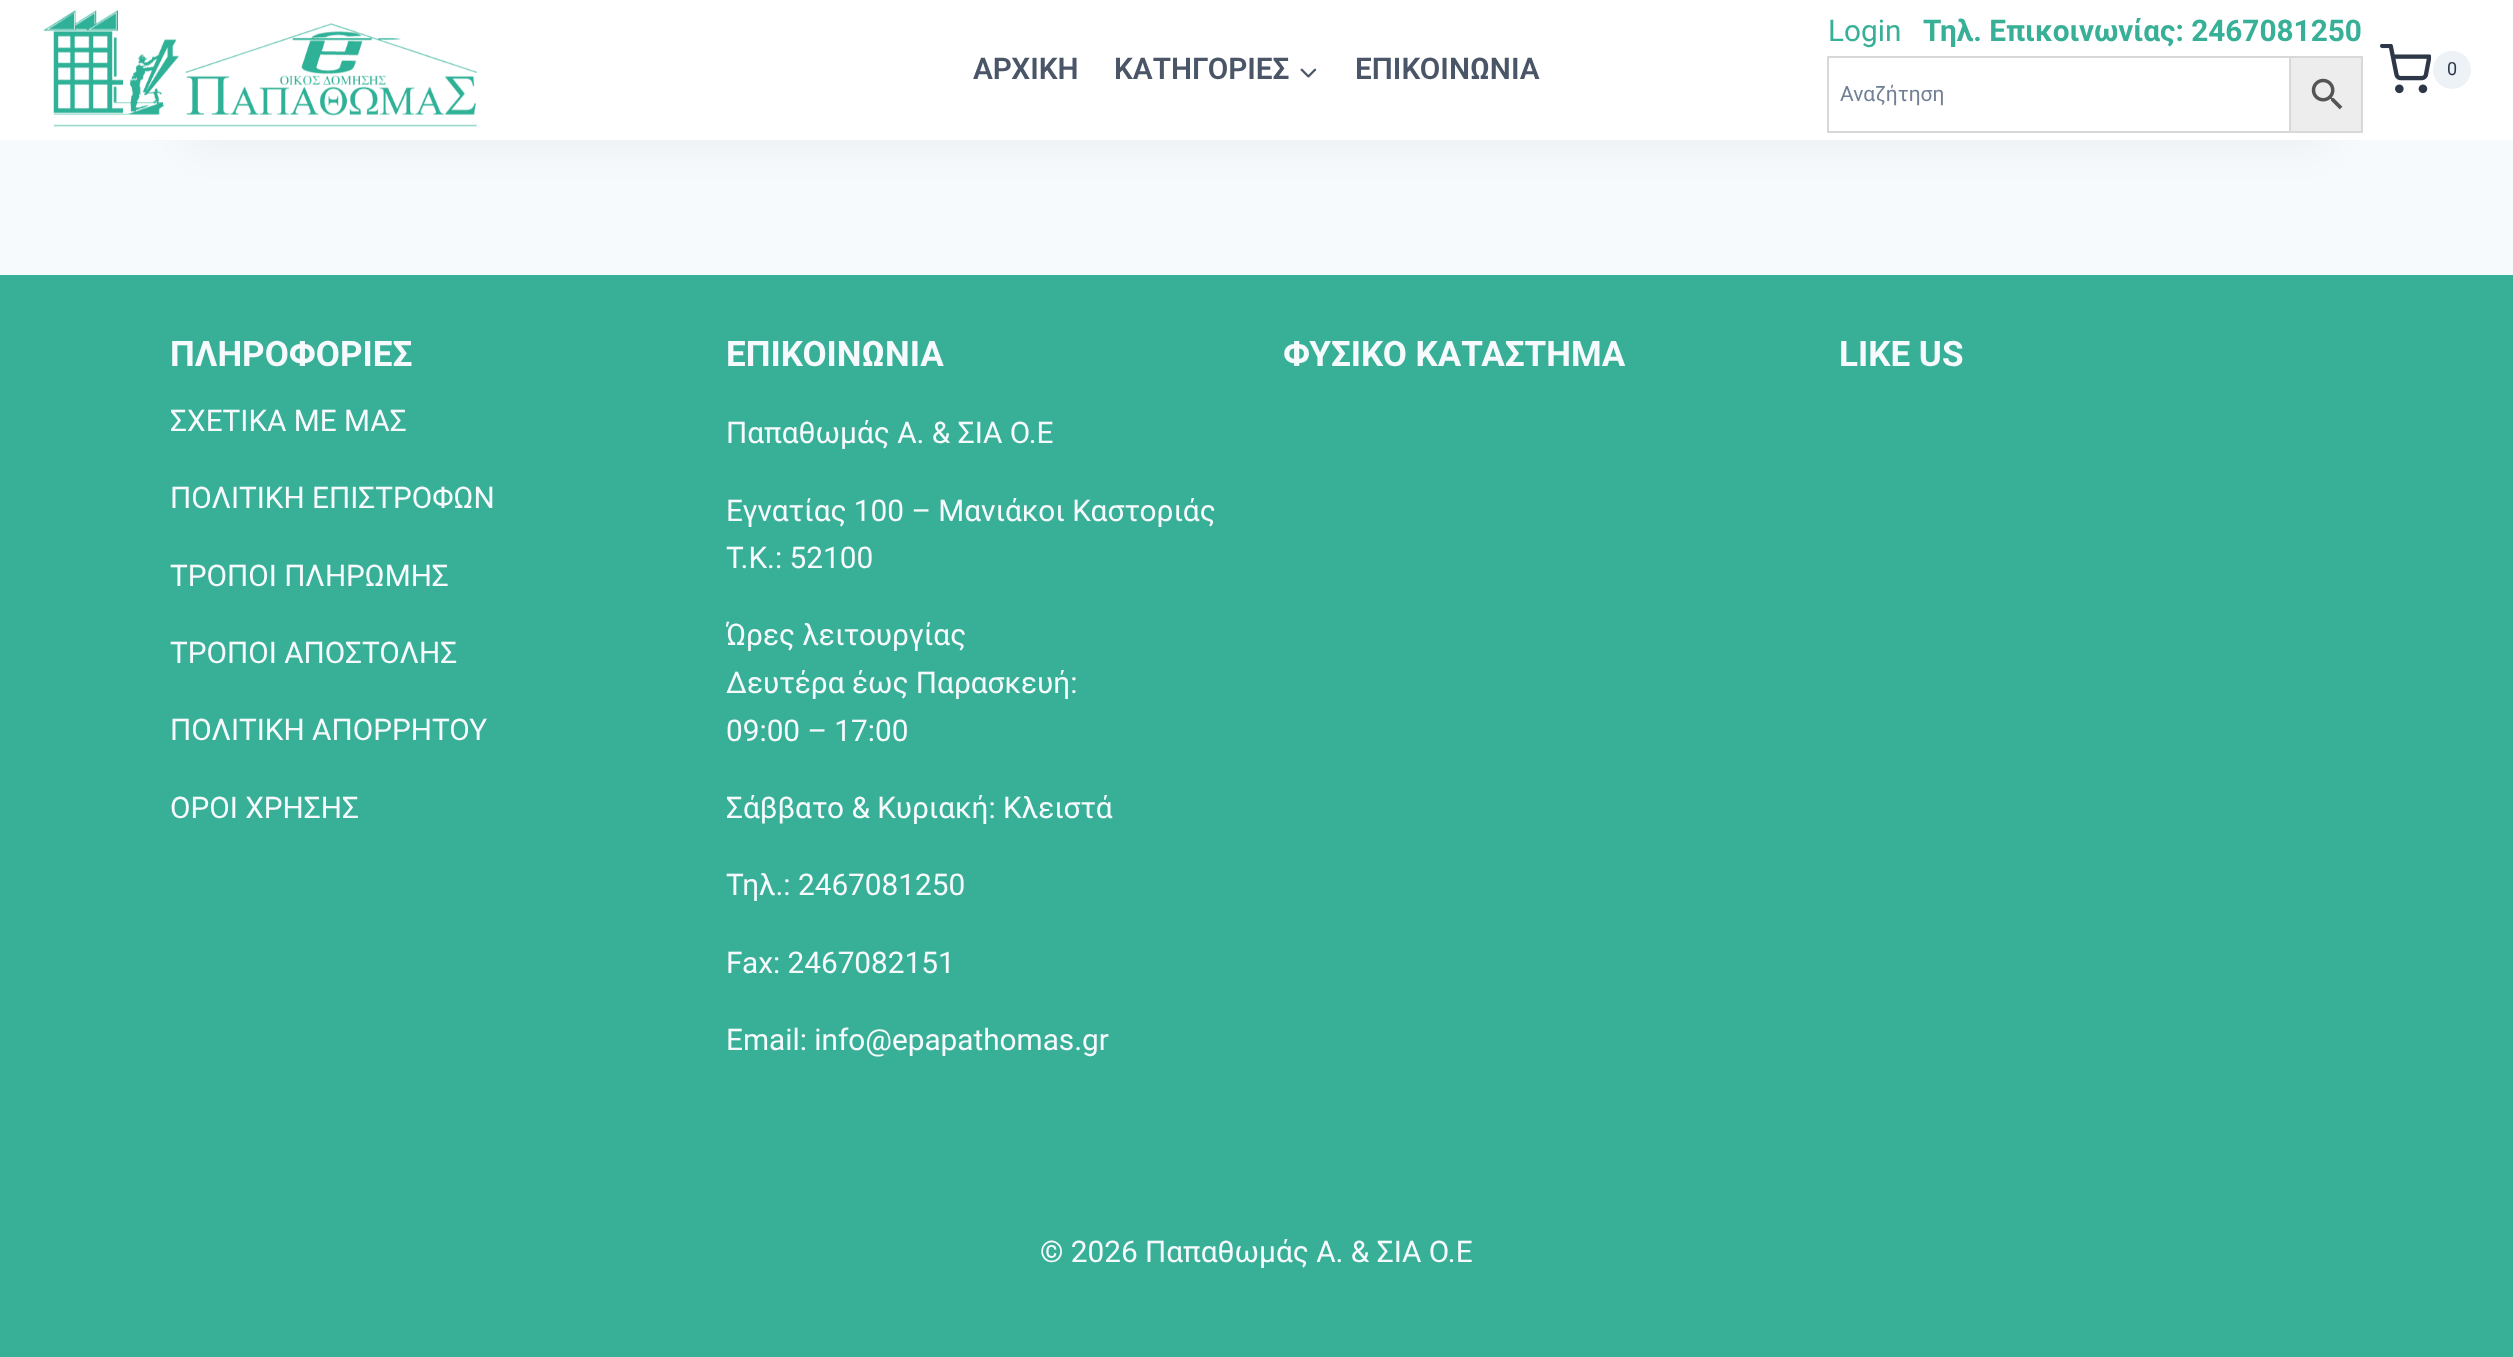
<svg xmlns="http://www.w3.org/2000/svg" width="2513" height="1357">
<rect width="100%" height="100%" fill="#f7fafc"/>
<rect x="187" y="-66" width="2139" height="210" fill="#0000000d" filter="blur(22px)"/>
<rect width="2513" height="140" fill="#fff"/>
<image x="43" y="10" width="435" height="117" href="media/1.png"/>
<text x="973" y="79" style="font-family:Roboto;font-size:29.75px;font-weight:600;fill:#4a5568">ΑΡΧΙΚΗ</text>
<text x="1114" y="79" style="font-family:Roboto;font-size:29.75px;font-weight:600;fill:#4a5568">ΚΑΤΗΓΟΡΙΕΣ</text>
<image x="1300" y="68" width="17" height="10" href="media/2.png"/>
<text x="1355" y="79" style="font-family:Roboto;font-size:29.75px;font-weight:600;fill:#4a5568">ΕΠΙΚΟΙΝΩΝΙΑ</text>
<text x="1923" y="41" style="font-family:Roboto;font-size:29.75px;font-weight:bold;fill:#38af97">Τηλ. Επικοινωνίας: 2467081250</text>
<rect x="2290" y="57" width="72" height="75" fill="#ededed" stroke="#d8d8d8" stroke-width="2"/>
<rect x="1828" y="57" width="462" height="75" fill="none" stroke="#d8d8d8" stroke-width="2"/>
<text x="1840" y="101" style="font-family:Roboto;font-size:21px;fill:#718096">Αναζήτηση</text>
<image x="2311" y="78" width="32" height="32" href="media/3.png"/>
<text x="1828" y="41" style="font-family:Roboto;font-size:29.75px;fill:#38af97">Login</text>
<image x="2380" y="44" width="51" height="50" href="media/4.png"/>
<circle cx="2452" cy="70" r="19" fill="#edf2f7"/>
<text x="2447" y="75" style="font-family:Roboto;font-size:18px;fill:#2d3748">0</text>
<rect y="275" width="2513" height="1082" fill="#38af97"/>
<text x="170" y="366" style="font-family:Roboto;font-size:35px;font-weight:bold;fill:#f7fafc">ΠΛΗΡΟΦΟΡΙΕΣ</text>
<text x="170" y="431" style="font-family:Roboto;font-size:29.75px;fill:#f7fafc">ΣΧΕΤΙΚΑ ΜΕ ΜΑΣ</text>
<text x="170" y="508" style="font-family:Roboto;font-size:29.75px;fill:#f7fafc">ΠΟΛΙΤΙΚΗ ΕΠΙΣΤΡΟΦΩΝ</text>
<text x="170" y="586" style="font-family:Roboto;font-size:29.75px;fill:#f7fafc">ΤΡΟΠΟΙ ΠΛΗΡΩΜΗΣ</text>
<text x="170" y="663" style="font-family:Roboto;font-size:29.75px;fill:#f7fafc">ΤΡΟΠΟΙ ΑΠΟΣΤΟΛΗΣ</text>
<text x="170" y="740" style="font-family:Roboto;font-size:29.75px;fill:#f7fafc">ΠΟΛΙΤΙΚΗ ΑΠΟΡΡΗΤΟΥ</text>
<text x="170" y="818" style="font-family:Roboto;font-size:29.75px;fill:#f7fafc">ΟΡΟΙ ΧΡΗΣΗΣ</text>
<text x="726" y="366" style="font-family:Roboto;font-size:35px;font-weight:bold;fill:#f7fafc">ΕΠΙΚΟΙΝΩΝΙΑ</text>
<text x="726" y="443" style="font-family:Roboto;font-size:29.75px;fill:#f7fafc">Παπαθωμάς Α. &amp; ΣΙΑ Ο.Ε</text>
<text x="726" y="521" style="font-family:Roboto;font-size:29.75px;fill:#f7fafc">Εγνατίας 100 – Μανιάκοι Καστοριάς</text>
<text x="726" y="568" style="font-family:Roboto;font-size:29.75px;fill:#f7fafc">Τ.Κ.: 52100</text>
<text x="726" y="645" style="font-family:Roboto;font-size:29.75px;fill:#f7fafc">Ώρες λειτουργίας</text>
<text x="726" y="693" style="font-family:Roboto;font-size:29.75px;fill:#f7fafc">Δευτέρα έως Παρασκευή:</text>
<text x="726" y="741" style="font-family:Roboto;font-size:29.75px;fill:#f7fafc">09:00 – 17:00</text>
<text x="726" y="818" style="font-family:Roboto;font-size:29.75px;fill:#f7fafc">Σάββατο &amp; Κυριακή: Κλειστά</text>
<text x="726" y="895" style="font-family:Roboto;font-size:29.75px;fill:#f7fafc">Τηλ.: 2467081250</text>
<text x="726" y="973" style="font-family:Roboto;font-size:29.75px;fill:#f7fafc">Fax: 2467082151</text>
<text x="726" y="1050" style="font-family:Roboto;font-size:29.75px;fill:#f7fafc">Email: info@epapathomas.gr</text>
<text x="1283" y="366" style="font-family:Roboto;font-size:35px;font-weight:bold;fill:#f7fafc">ΦΥΣΙΚΟ ΚΑΤΑΣΤΗΜΑ</text>
<text x="1839" y="366" style="font-family:Roboto;font-size:35px;font-weight:bold;fill:#f7fafc">LIKE US</text>
<text x="1040" y="1262" style="font-family:Roboto;font-size:29.75px;fill:#f7fafc">© 2026 Παπαθωμάς Α. &amp; ΣΙΑ Ο.Ε</text>
</svg>
